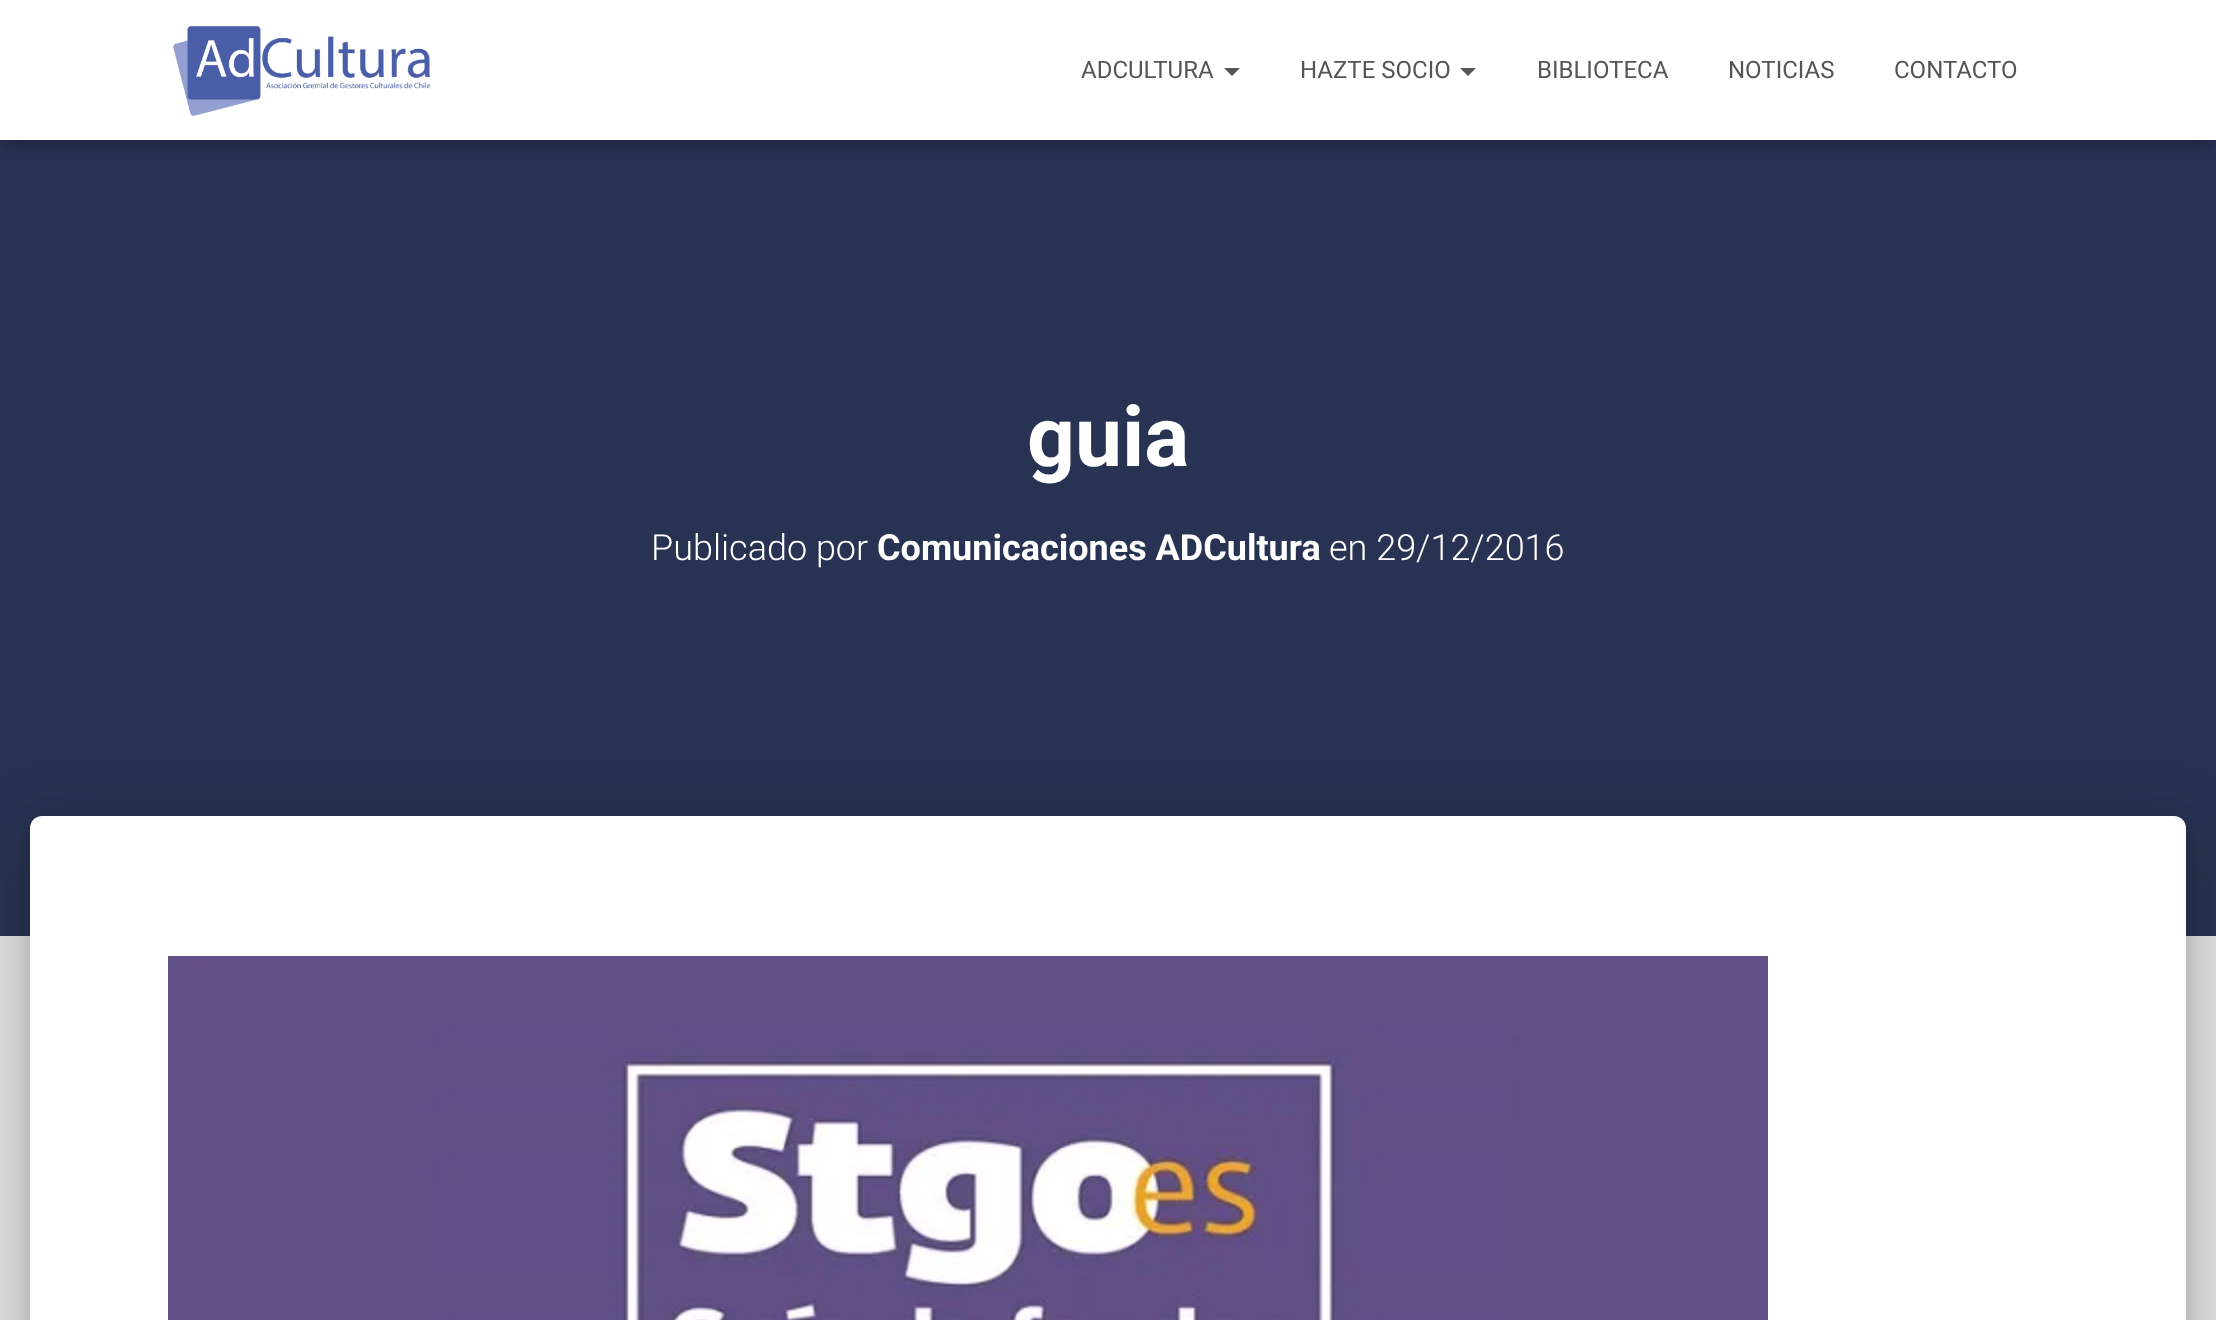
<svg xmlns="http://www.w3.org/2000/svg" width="2216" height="1320">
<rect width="100%" height="100%" fill="#e5e5e5"/>
<image x="0" y="140" width="2216" height="796" href="media/2.png"/>
<rect x="4" y="12" width="2208" height="132" fill="#0000001a" filter="blur(5px)"/>
<rect y="2" width="2216" height="140" fill="#0000001f" filter="blur(10px)"/>
<rect x="12" y="14" width="2192" height="116" fill="#0000006b" filter="blur(10px)"/>
<rect width="2216" height="140" fill="#fff"/>
<image x="173" y="26" width="258" height="90" href="media/1.png"/>
<text x="1081" y="78" style="font-family:Roboto;font-size:24px;fill:#555">ADCULTURA</text>
<path d="M1224 68h16l-8 8z" fill="#555"/>
<text x="1300" y="78" style="font-family:Roboto;font-size:24px;fill:#555">HAZTE SOCIO</text>
<path d="M1460 68h16l-8 8z" fill="#555"/>
<text x="1537" y="78" style="font-family:Roboto;font-size:24px;fill:#555">BIBLIOTECA</text>
<text x="1728" y="78" style="font-family:Roboto;font-size:24px;fill:#555">NOTICIAS</text>
<text x="1894" y="78" style="font-family:Roboto;font-size:24px;fill:#555">CONTACTO</text>
<text x="1027" y="466" style="font-family:Roboto;font-size:84px;font-weight:bold;fill:#fff">guia</text>
<text x="651" y="560" style="font-family:Roboto;font-size:36px;font-weight:300;fill:#fff">Publicado por</text>
<text x="877" y="560" style="font-family:Roboto;font-size:36px;font-weight:bold;fill:#fff">Comunicaciones ADCultura</text>
<text x="1329" y="560" style="font-family:Roboto;font-size:36px;font-weight:300;fill:#fff">en 29/12/2016</text>
<rect x="40" y="842" width="2136" height="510" rx="2" fill="#00000033" filter="blur(10px)"/>
<rect x="20" y="818" width="2176" height="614" rx="22" fill="#0000001f" filter="blur(30px)"/>
<rect x="26" y="844" width="2164" height="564" rx="16" fill="#00000024" filter="blur(24px)"/>
<path d="M42 816h2132c6.5 0 12 5.5 12 12v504h-2156v-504c0-6.5 5.5-12 12-12z" fill="#fff"/>
<image x="168" y="956" width="1600" height="364" href="media/3.png"/>
</svg>
